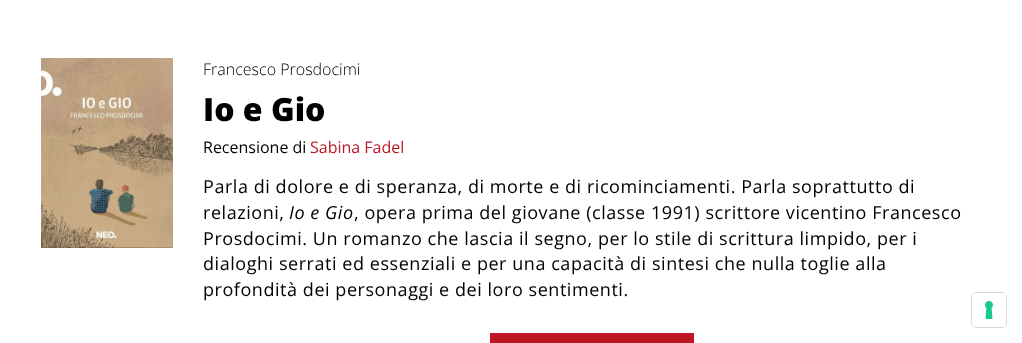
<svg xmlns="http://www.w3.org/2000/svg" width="1022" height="343">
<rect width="100%" height="100%" fill="#fff"/>
<image x="41" y="58" width="132" height="190" href="media/1.png"/>
<text x="203" y="75" style="font-family:Open Sans;font-size:16px;font-weight:300;fill:#000">Francesco Prosdocimi</text>
<text x="203" y="121" style="font-family:Open Sans;font-size:32px;font-weight:800;fill:#000">Io e Gio</text>
<text x="203" y="153" style="font-family:Open Sans;font-size:16px;fill:#000">Recensione di</text>
<text x="310" y="153" style="font-family:Open Sans;font-size:16px;fill:#be1622">Sabina Fadel</text>
<text x="203" y="193" style="font-family:Open Sans;font-size:18px;letter-spacing:0.55px;fill:#000">Parla di dolore e di speranza, di morte e di ricominciamenti. Parla soprattutto di</text>
<text x="203" y="219" style="font-family:Open Sans;font-size:18px;letter-spacing:0.55px;fill:#000">relazioni,</text>
<text x="289" y="219" style="font-family:Open Sans;font-size:18px;font-style:italic;letter-spacing:0.55px;fill:#000">Io e Gio</text>
<text x="354" y="219" style="font-family:Open Sans;font-size:18px;letter-spacing:0.55px;fill:#000">, opera prima del giovane (classe 1991) scrittore vicentino Francesco</text>
<text x="203" y="245" style="font-family:Open Sans;font-size:18px;letter-spacing:0.55px;fill:#000">Prosdocimi. Un romanzo che lascia il segno, per lo stile di scrittura limpido, per i</text>
<text x="203" y="270" style="font-family:Open Sans;font-size:18px;letter-spacing:0.55px;fill:#000">dialoghi serrati ed essenziali e per una capacità di sintesi che nulla toglie alla</text>
<text x="203" y="296" style="font-family:Open Sans;font-size:18px;letter-spacing:0.55px;fill:#000">profondità dei personaggi e dei loro sentimenti.</text>
<rect x="490" y="333" width="204" height="10" fill="#be1622"/>
<rect x="971.5" y="292.5" width="35" height="35" rx="4.5" fill="none" stroke="#d9d9d9"/>
<rect x="972" y="293" width="34" height="34" rx="4" fill="#fff"/>
<image x="985" y="301" width="8" height="18" href="media/2.png"/>
</svg>
